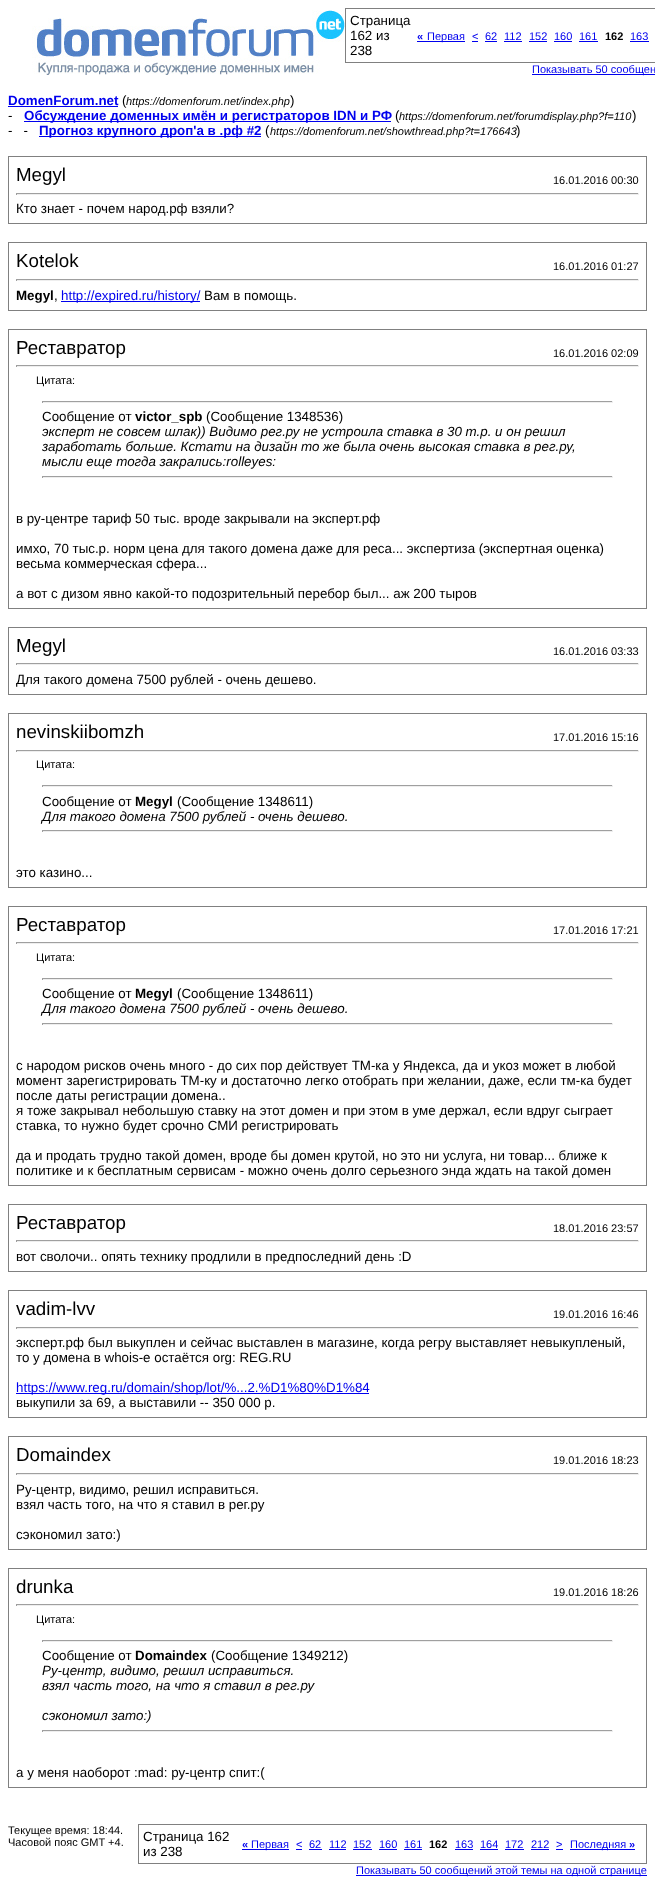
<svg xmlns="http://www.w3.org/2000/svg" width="655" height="1879">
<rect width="100%" height="100%" fill="#fff"/>
<image x="32" y="10" width="313" height="65" href="media/1.png"/>
<rect x="345.5" y="8.5" width="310" height="54" fill="none" stroke="#808080"/>
<text x="350" y="25" style="font-family:Liberation Sans;font-size:13.35px;fill:#000">Страница</text>
<text x="350" y="40" style="font-family:Liberation Sans;font-size:13.35px;fill:#000">162 из</text>
<text x="350" y="55" style="font-family:Liberation Sans;font-size:13.35px;fill:#000">238</text>
<text x="417" y="40" style="font-family:Liberation Sans;font-size:11px;font-weight:bold;fill:#00e">«</text>
<rect x="417" y="41" width="48" height="1" fill="#00e"/>
<text x="427" y="40" style="font-family:Liberation Sans;font-size:11px;fill:#00e">Первая</text>
<text x="472" y="40" style="font-family:Liberation Sans;font-size:11px;fill:#00e">&lt;</text>
<rect x="472" y="41" width="6" height="1" fill="#00e"/>
<text x="485" y="40" style="font-family:Liberation Sans;font-size:11px;fill:#00e">62</text>
<rect x="485" y="41" width="12" height="1" fill="#00e"/>
<text x="504" y="40" style="font-family:Liberation Sans;font-size:11px;fill:#00e">112</text>
<rect x="504" y="41" width="18" height="1" fill="#00e"/>
<text x="529" y="40" style="font-family:Liberation Sans;font-size:11px;fill:#00e">152</text>
<rect x="529" y="41" width="18" height="1" fill="#00e"/>
<text x="554" y="40" style="font-family:Liberation Sans;font-size:11px;fill:#00e">160</text>
<rect x="554" y="41" width="18" height="1" fill="#00e"/>
<text x="579" y="40" style="font-family:Liberation Sans;font-size:11px;fill:#00e">161</text>
<rect x="579" y="41" width="19" height="1" fill="#00e"/>
<text x="605" y="40" style="font-family:Liberation Sans;font-size:11px;font-weight:bold;fill:#000">162</text>
<text x="630" y="40" style="font-family:Liberation Sans;font-size:11px;fill:#00e">163</text>
<rect x="630" y="41" width="19" height="1" fill="#00e"/>
<rect x="532" y="74" width="123" height="1" fill="#00e"/>
<text x="532" y="73" style="font-family:Liberation Sans;font-size:11px;fill:#00e">Показывать 50 сообщен</text>
<text x="8" y="105" style="font-family:Liberation Sans;font-size:13.35px;font-weight:bold;fill:#00e">DomenForum.net</text>
<rect x="8" y="106" width="110" height="1" fill="#00e"/>
<text x="122" y="105" style="font-family:Liberation Sans;font-size:13.35px;fill:#000">(</text>
<text x="126" y="105" style="font-family:Liberation Sans;font-size:11px;font-style:italic;fill:#000">https://domenforum.net/index.php</text>
<text x="290" y="105" style="font-family:Liberation Sans;font-size:13.35px;fill:#000">)</text>
<text x="8" y="120" style="font-family:Liberation Sans;font-size:13.35px;fill:#000">-</text>
<rect x="24" y="121" width="367" height="1" fill="#00e"/>
<text x="24" y="120" style="font-family:Liberation Sans;font-size:13.35px;font-weight:bold;fill:#00e">Обсуждение доменных имён и регистраторов IDN и РФ</text>
<text x="395" y="120" style="font-family:Liberation Sans;font-size:13.35px;fill:#000">(</text>
<text x="399" y="120" style="font-family:Liberation Sans;font-size:11px;font-style:italic;fill:#000">https://domenforum.net/forumdisplay.php?f=110</text>
<text x="632" y="120" style="font-family:Liberation Sans;font-size:13.35px;fill:#000">)</text>
<text x="8" y="135" style="font-family:Liberation Sans;font-size:13.35px;fill:#000" xml:space="preserve">-   -</text>
<rect x="39" y="136" width="222" height="1" fill="#00e"/>
<text x="39" y="135" style="font-family:Liberation Sans;font-size:13.35px;font-weight:bold;fill:#00e">Прогноз крупного дроп'а в .рф #2</text>
<text x="265" y="135" style="font-family:Liberation Sans;font-size:13.35px;fill:#000">(</text>
<text x="270" y="135" style="font-family:Liberation Sans;font-size:11px;font-style:italic;fill:#000">https://domenforum.net/showthread.php?t=176643</text>
<text x="516" y="135" style="font-family:Liberation Sans;font-size:13.35px;fill:#000">)</text>
<rect x="8.5" y="156.5" width="638" height="67" fill="none" stroke="#808080"/>
<text x="16" y="181" style="font-family:Liberation Sans;font-size:18.75px;fill:#000">Megyl</text>
<text x="553" y="184" style="font-family:Liberation Sans;font-size:11px;fill:#000">16.01.2016 00:30</text>
<rect x="16" y="193" width="623" height="1" fill="#9f9f9f"/>
<rect x="638" y="193" width="1" height="2" fill="#eee"/>
<rect x="16" y="194" width="623" height="1" fill="#eee"/>
<rect x="16" y="193" width="1" height="2" fill="#9f9f9f"/>
<text x="16" y="213" style="font-family:Liberation Sans;font-size:13.35px;fill:#000">Кто знает - почем народ.рф взяли?</text>
<rect x="8.5" y="242.5" width="638" height="68" fill="none" stroke="#808080"/>
<text x="16" y="267" style="font-family:Liberation Sans;font-size:18.75px;fill:#000">Kotelok</text>
<text x="553" y="270" style="font-family:Liberation Sans;font-size:11px;fill:#000">16.01.2016 01:27</text>
<rect x="16" y="279" width="623" height="1" fill="#9f9f9f"/>
<rect x="638" y="279" width="1" height="2" fill="#eee"/>
<rect x="16" y="280" width="623" height="1" fill="#eee"/>
<rect x="16" y="279" width="1" height="2" fill="#9f9f9f"/>
<text x="16" y="300" style="font-family:Liberation Sans;font-size:13.35px;font-weight:bold;fill:#000">Megyl</text>
<text x="54" y="300" style="font-family:Liberation Sans;font-size:13.35px;fill:#000">,</text>
<rect x="61" y="301" width="139" height="1" fill="#00e"/>
<text x="61" y="300" style="font-family:Liberation Sans;font-size:13.35px;fill:#00e">http://expired.ru/history/</text>
<text x="204" y="300" style="font-family:Liberation Sans;font-size:13.35px;fill:#000">Вам в помощь.</text>
<rect x="8.5" y="329.5" width="638" height="279" fill="none" stroke="#808080"/>
<text x="16" y="354" style="font-family:Liberation Sans;font-size:18.75px;fill:#000">Реставратор</text>
<text x="553" y="357" style="font-family:Liberation Sans;font-size:11px;fill:#000">16.01.2016 02:09</text>
<rect x="16" y="365" width="623" height="1" fill="#9f9f9f"/>
<rect x="638" y="365" width="1" height="2" fill="#eee"/>
<rect x="16" y="366" width="623" height="1" fill="#eee"/>
<rect x="16" y="365" width="1" height="2" fill="#9f9f9f"/>
<text x="36" y="384" style="font-family:Liberation Sans;font-size:11px;fill:#000">Цитата:</text>
<rect x="42" y="401" width="571" height="1" fill="#9f9f9f"/>
<rect x="612" y="401" width="1" height="2" fill="#eee"/>
<rect x="42" y="402" width="571" height="1" fill="#eee"/>
<rect x="42" y="401" width="1" height="2" fill="#9f9f9f"/>
<text x="42" y="421" style="font-family:Liberation Sans;font-size:13.35px;fill:#000">Сообщение от</text>
<text x="135" y="421" style="font-family:Liberation Sans;font-size:13.35px;font-weight:bold;fill:#000">victor_spb</text>
<text x="206" y="421" style="font-family:Liberation Sans;font-size:13.35px;fill:#000">(Сообщение 1348536)</text>
<text x="42" y="436" style="font-family:Liberation Sans;font-size:13.35px;font-style:italic;fill:#000">эксперт не совсем шлак)) Видимо рег.ру не устроила ставка в 30 т.р. и он решил</text>
<text x="42" y="451" style="font-family:Liberation Sans;font-size:13.35px;font-style:italic;fill:#000">заработать больше. Кстати на дизайн то же была очень высокая ставка в рег.ру,</text>
<text x="42" y="466" style="font-family:Liberation Sans;font-size:13.35px;font-style:italic;fill:#000">мысли еще тогда закрались:rolleyes:</text>
<rect x="42" y="476" width="571" height="1" fill="#9f9f9f"/>
<rect x="612" y="476" width="1" height="2" fill="#eee"/>
<rect x="42" y="477" width="571" height="1" fill="#eee"/>
<rect x="42" y="476" width="1" height="2" fill="#9f9f9f"/>
<text x="16" y="523" style="font-family:Liberation Sans;font-size:13.35px;fill:#000">в ру-центре тариф 50 тыс. вроде закрывали на эксперт.рф</text>
<text x="16" y="553" style="font-family:Liberation Sans;font-size:13.35px;fill:#000">имхо, 70 тыс.р. норм цена для такого домена даже для реса... экспертиза (экспертная оценка)</text>
<text x="16" y="568" style="font-family:Liberation Sans;font-size:13.35px;fill:#000">весьма коммерческая сфера...</text>
<text x="16" y="598" style="font-family:Liberation Sans;font-size:13.35px;fill:#000">а вот с дизом явно какой-то подозрительный перебор был... аж 200 тыров</text>
<rect x="8.5" y="627.5" width="638" height="67" fill="none" stroke="#808080"/>
<text x="16" y="652" style="font-family:Liberation Sans;font-size:18.75px;fill:#000">Megyl</text>
<text x="553" y="655" style="font-family:Liberation Sans;font-size:11px;fill:#000">16.01.2016 03:33</text>
<rect x="16" y="663" width="623" height="1" fill="#9f9f9f"/>
<rect x="638" y="663" width="1" height="2" fill="#eee"/>
<rect x="16" y="664" width="623" height="1" fill="#eee"/>
<rect x="16" y="663" width="1" height="2" fill="#9f9f9f"/>
<text x="16" y="684" style="font-family:Liberation Sans;font-size:13.35px;fill:#000">Для такого домена 7500 рублей - очень дешево.</text>
<rect x="8.5" y="713.5" width="638" height="174" fill="none" stroke="#808080"/>
<text x="16" y="738" style="font-family:Liberation Sans;font-size:18.75px;fill:#000">nevinskiibomzh</text>
<text x="553" y="741" style="font-family:Liberation Sans;font-size:11px;fill:#000">17.01.2016 15:16</text>
<rect x="16" y="750" width="623" height="1" fill="#9f9f9f"/>
<rect x="638" y="750" width="1" height="2" fill="#eee"/>
<rect x="16" y="751" width="623" height="1" fill="#eee"/>
<rect x="16" y="750" width="1" height="2" fill="#9f9f9f"/>
<text x="36" y="768" style="font-family:Liberation Sans;font-size:11px;fill:#000">Цитата:</text>
<rect x="42" y="785" width="571" height="1" fill="#9f9f9f"/>
<rect x="612" y="785" width="1" height="2" fill="#eee"/>
<rect x="42" y="786" width="571" height="1" fill="#eee"/>
<rect x="42" y="785" width="1" height="2" fill="#9f9f9f"/>
<text x="42" y="806" style="font-family:Liberation Sans;font-size:13.35px;fill:#000">Сообщение от</text>
<text x="135" y="806" style="font-family:Liberation Sans;font-size:13.35px;font-weight:bold;fill:#000">Megyl</text>
<text x="177" y="806" style="font-family:Liberation Sans;font-size:13.35px;fill:#000">(Сообщение 1348611)</text>
<text x="42" y="821" style="font-family:Liberation Sans;font-size:13.35px;font-style:italic;fill:#000">Для такого домена 7500 рублей - очень дешево.</text>
<rect x="42" y="830" width="571" height="1" fill="#9f9f9f"/>
<rect x="612" y="830" width="1" height="2" fill="#eee"/>
<rect x="42" y="831" width="571" height="1" fill="#eee"/>
<rect x="42" y="830" width="1" height="2" fill="#9f9f9f"/>
<text x="16" y="877" style="font-family:Liberation Sans;font-size:13.35px;fill:#000">это казино...</text>
<rect x="8.5" y="906.5" width="638" height="279" fill="none" stroke="#808080"/>
<text x="16" y="931" style="font-family:Liberation Sans;font-size:18.75px;fill:#000">Реставратор</text>
<text x="553" y="934" style="font-family:Liberation Sans;font-size:11px;fill:#000">17.01.2016 17:21</text>
<rect x="16" y="942" width="623" height="1" fill="#9f9f9f"/>
<rect x="638" y="942" width="1" height="2" fill="#eee"/>
<rect x="16" y="943" width="623" height="1" fill="#eee"/>
<rect x="16" y="942" width="1" height="2" fill="#9f9f9f"/>
<text x="36" y="961" style="font-family:Liberation Sans;font-size:11px;fill:#000">Цитата:</text>
<rect x="42" y="978" width="571" height="1" fill="#9f9f9f"/>
<rect x="612" y="978" width="1" height="2" fill="#eee"/>
<rect x="42" y="979" width="571" height="1" fill="#eee"/>
<rect x="42" y="978" width="1" height="2" fill="#9f9f9f"/>
<text x="42" y="998" style="font-family:Liberation Sans;font-size:13.35px;fill:#000">Сообщение от</text>
<text x="135" y="998" style="font-family:Liberation Sans;font-size:13.35px;font-weight:bold;fill:#000">Megyl</text>
<text x="177" y="998" style="font-family:Liberation Sans;font-size:13.35px;fill:#000">(Сообщение 1348611)</text>
<text x="42" y="1013" style="font-family:Liberation Sans;font-size:13.35px;font-style:italic;fill:#000">Для такого домена 7500 рублей - очень дешево.</text>
<rect x="42" y="1023" width="571" height="1" fill="#9f9f9f"/>
<rect x="612" y="1023" width="1" height="2" fill="#eee"/>
<rect x="42" y="1024" width="571" height="1" fill="#eee"/>
<rect x="42" y="1023" width="1" height="2" fill="#9f9f9f"/>
<text x="16" y="1070" style="font-family:Liberation Sans;font-size:13.35px;fill:#000">с народом рисков очень много - до сих пор действует ТМ-ка у Яндекса, да и укоз может в любой</text>
<text x="16" y="1085" style="font-family:Liberation Sans;font-size:13.35px;fill:#000">момент зарегистрировать ТМ-ку и достаточно легко отобрать при желании, даже, если тм-ка будет</text>
<text x="16" y="1100" style="font-family:Liberation Sans;font-size:13.35px;fill:#000">после даты регистрации домена..</text>
<text x="16" y="1115" style="font-family:Liberation Sans;font-size:13.35px;fill:#000">я тоже закрывал небольшую ставку на этот домен и при этом в уме держал, если вдруг сыграет</text>
<text x="16" y="1130" style="font-family:Liberation Sans;font-size:13.35px;fill:#000">ставка, то нужно будет срочно СМИ регистрировать</text>
<text x="16" y="1160" style="font-family:Liberation Sans;font-size:13.35px;fill:#000">да и продать трудно такой домен, вроде бы домен крутой, но это ни услуга, ни товар... ближе к</text>
<text x="16" y="1175" style="font-family:Liberation Sans;font-size:13.35px;fill:#000">политике и к бесплатным сервисам - можно очень долго серьезного энда ждать на такой домен</text>
<rect x="8.5" y="1204.5" width="638" height="67" fill="none" stroke="#808080"/>
<text x="16" y="1229" style="font-family:Liberation Sans;font-size:18.75px;fill:#000">Реставратор</text>
<text x="553" y="1232" style="font-family:Liberation Sans;font-size:11px;fill:#000">18.01.2016 23:57</text>
<rect x="16" y="1240" width="623" height="1" fill="#9f9f9f"/>
<rect x="638" y="1240" width="1" height="2" fill="#eee"/>
<rect x="16" y="1241" width="623" height="1" fill="#eee"/>
<rect x="16" y="1240" width="1" height="2" fill="#9f9f9f"/>
<text x="16" y="1261" style="font-family:Liberation Sans;font-size:13.35px;fill:#000">вот сволочи.. опять технику продлили в предпоследний день :D</text>
<rect x="8.5" y="1290.5" width="638" height="127" fill="none" stroke="#808080"/>
<text x="16" y="1315" style="font-family:Liberation Sans;font-size:18.75px;fill:#000">vadim-lvv</text>
<text x="553" y="1318" style="font-family:Liberation Sans;font-size:11px;fill:#000">19.01.2016 16:46</text>
<rect x="16" y="1327" width="623" height="1" fill="#9f9f9f"/>
<rect x="638" y="1327" width="1" height="2" fill="#eee"/>
<rect x="16" y="1328" width="623" height="1" fill="#eee"/>
<rect x="16" y="1327" width="1" height="2" fill="#9f9f9f"/>
<text x="16" y="1347" style="font-family:Liberation Sans;font-size:13.35px;fill:#000">эксперт.рф был выкуплен и сейчас выставлен в магазине, когда регру выставляет невыкупленый,</text>
<text x="16" y="1362" style="font-family:Liberation Sans;font-size:13.35px;fill:#000">то у домена в whois-е остаётся org: REG.RU</text>
<rect x="16" y="1393" width="353" height="1" fill="#00e"/>
<text x="16" y="1392" style="font-family:Liberation Sans;font-size:13.35px;fill:#00e">https://www.reg.ru/domain/shop/lot/%...2.%D1%80%D1%84</text>
<text x="16" y="1407" style="font-family:Liberation Sans;font-size:13.35px;fill:#000">выкупили за 69, а выставили -- 350 000 р.</text>
<rect x="8.5" y="1436.5" width="638" height="113" fill="none" stroke="#808080"/>
<text x="16" y="1461" style="font-family:Liberation Sans;font-size:18.75px;fill:#000">Domaindex</text>
<text x="553" y="1464" style="font-family:Liberation Sans;font-size:11px;fill:#000">19.01.2016 18:23</text>
<rect x="16" y="1473" width="623" height="1" fill="#9f9f9f"/>
<rect x="638" y="1473" width="1" height="2" fill="#eee"/>
<rect x="16" y="1474" width="623" height="1" fill="#eee"/>
<rect x="16" y="1473" width="1" height="2" fill="#9f9f9f"/>
<text x="16" y="1494" style="font-family:Liberation Sans;font-size:13.35px;fill:#000">Ру-центр, видимо, решил исправиться.</text>
<text x="16" y="1509" style="font-family:Liberation Sans;font-size:13.35px;fill:#000">взял часть того, на что я ставил в рег.ру</text>
<text x="16" y="1539" style="font-family:Liberation Sans;font-size:13.35px;fill:#000">сэкономил зато:)</text>
<rect x="8.5" y="1568.5" width="638" height="219" fill="none" stroke="#808080"/>
<text x="16" y="1593" style="font-family:Liberation Sans;font-size:18.75px;fill:#000">drunka</text>
<text x="553" y="1596" style="font-family:Liberation Sans;font-size:11px;fill:#000">19.01.2016 18:26</text>
<rect x="16" y="1604" width="623" height="1" fill="#9f9f9f"/>
<rect x="638" y="1604" width="1" height="2" fill="#eee"/>
<rect x="16" y="1605" width="623" height="1" fill="#eee"/>
<rect x="16" y="1604" width="1" height="2" fill="#9f9f9f"/>
<text x="36" y="1623" style="font-family:Liberation Sans;font-size:11px;fill:#000">Цитата:</text>
<rect x="42" y="1640" width="571" height="1" fill="#9f9f9f"/>
<rect x="612" y="1640" width="1" height="2" fill="#eee"/>
<rect x="42" y="1641" width="571" height="1" fill="#eee"/>
<rect x="42" y="1640" width="1" height="2" fill="#9f9f9f"/>
<text x="42" y="1660" style="font-family:Liberation Sans;font-size:13.35px;fill:#000">Сообщение от</text>
<text x="135" y="1660" style="font-family:Liberation Sans;font-size:13.35px;font-weight:bold;fill:#000">Domaindex</text>
<text x="211" y="1660" style="font-family:Liberation Sans;font-size:13.35px;fill:#000">(Сообщение 1349212)</text>
<text x="42" y="1675" style="font-family:Liberation Sans;font-size:13.35px;font-style:italic;fill:#000">Ру-центр, видимо, решил исправиться.</text>
<text x="42" y="1690" style="font-family:Liberation Sans;font-size:13.35px;font-style:italic;fill:#000">взял часть того, на что я ставил в рег.ру</text>
<text x="42" y="1720" style="font-family:Liberation Sans;font-size:13.35px;font-style:italic;fill:#000">сэкономил зато:)</text>
<rect x="42" y="1730" width="571" height="1" fill="#9f9f9f"/>
<rect x="612" y="1730" width="1" height="2" fill="#eee"/>
<rect x="42" y="1731" width="571" height="1" fill="#eee"/>
<rect x="42" y="1730" width="1" height="2" fill="#9f9f9f"/>
<text x="16" y="1777" style="font-family:Liberation Sans;font-size:13.35px;fill:#000">а у меня наоборот :mad: ру-центр спит:(</text>
<text x="8" y="1834" style="font-family:Liberation Sans;font-size:11px;fill:#000">Текущее время: 18:44.</text>
<text x="8" y="1846" style="font-family:Liberation Sans;font-size:11px;fill:#000">Часовой пояс GMT +4.</text>
<rect x="138.5" y="1824.5" width="508" height="39" fill="none" stroke="#808080"/>
<text x="143" y="1841" style="font-family:Liberation Sans;font-size:13.35px;fill:#000">Страница 162</text>
<text x="143" y="1856" style="font-family:Liberation Sans;font-size:13.35px;fill:#000">из 238</text>
<text x="242" y="1848" style="font-family:Liberation Sans;font-size:11px;font-weight:bold;fill:#00e">«</text>
<rect x="242" y="1849" width="47" height="1" fill="#00e"/>
<text x="251" y="1848" style="font-family:Liberation Sans;font-size:11px;fill:#00e">Первая</text>
<text x="296" y="1848" style="font-family:Liberation Sans;font-size:11px;fill:#00e">&lt;</text>
<rect x="296" y="1849" width="6" height="1" fill="#00e"/>
<text x="309" y="1848" style="font-family:Liberation Sans;font-size:11px;fill:#00e">62</text>
<rect x="309" y="1849" width="13" height="1" fill="#00e"/>
<text x="329" y="1848" style="font-family:Liberation Sans;font-size:11px;fill:#00e">112</text>
<rect x="329" y="1849" width="17" height="1" fill="#00e"/>
<text x="353" y="1848" style="font-family:Liberation Sans;font-size:11px;fill:#00e">152</text>
<rect x="353" y="1849" width="19" height="1" fill="#00e"/>
<text x="379" y="1848" style="font-family:Liberation Sans;font-size:11px;fill:#00e">160</text>
<rect x="379" y="1849" width="18" height="1" fill="#00e"/>
<text x="404" y="1848" style="font-family:Liberation Sans;font-size:11px;fill:#00e">161</text>
<rect x="404" y="1849" width="18" height="1" fill="#00e"/>
<text x="429" y="1848" style="font-family:Liberation Sans;font-size:11px;font-weight:bold;fill:#000">162</text>
<text x="455" y="1848" style="font-family:Liberation Sans;font-size:11px;fill:#00e">163</text>
<rect x="455" y="1849" width="18" height="1" fill="#00e"/>
<text x="480" y="1848" style="font-family:Liberation Sans;font-size:11px;fill:#00e">164</text>
<rect x="480" y="1849" width="18" height="1" fill="#00e"/>
<text x="505" y="1848" style="font-family:Liberation Sans;font-size:11px;fill:#00e">172</text>
<rect x="505" y="1849" width="19" height="1" fill="#00e"/>
<text x="531" y="1848" style="font-family:Liberation Sans;font-size:11px;fill:#00e">212</text>
<rect x="531" y="1849" width="18" height="1" fill="#00e"/>
<text x="556" y="1848" style="font-family:Liberation Sans;font-size:11px;fill:#00e">&gt;</text>
<rect x="556" y="1849" width="7" height="1" fill="#00e"/>
<rect x="570" y="1849" width="65" height="1" fill="#00e"/>
<text x="570" y="1848" style="font-family:Liberation Sans;font-size:11px;fill:#00e">Последняя</text>
<text x="629" y="1848" style="font-family:Liberation Sans;font-size:11px;font-weight:bold;fill:#00e">»</text>
<rect x="356" y="1875" width="291" height="1" fill="#00e"/>
<text x="356" y="1874" style="font-family:Liberation Sans;font-size:11px;fill:#00e">Показывать 50 сообщений этой темы на одной странице</text>
</svg>
